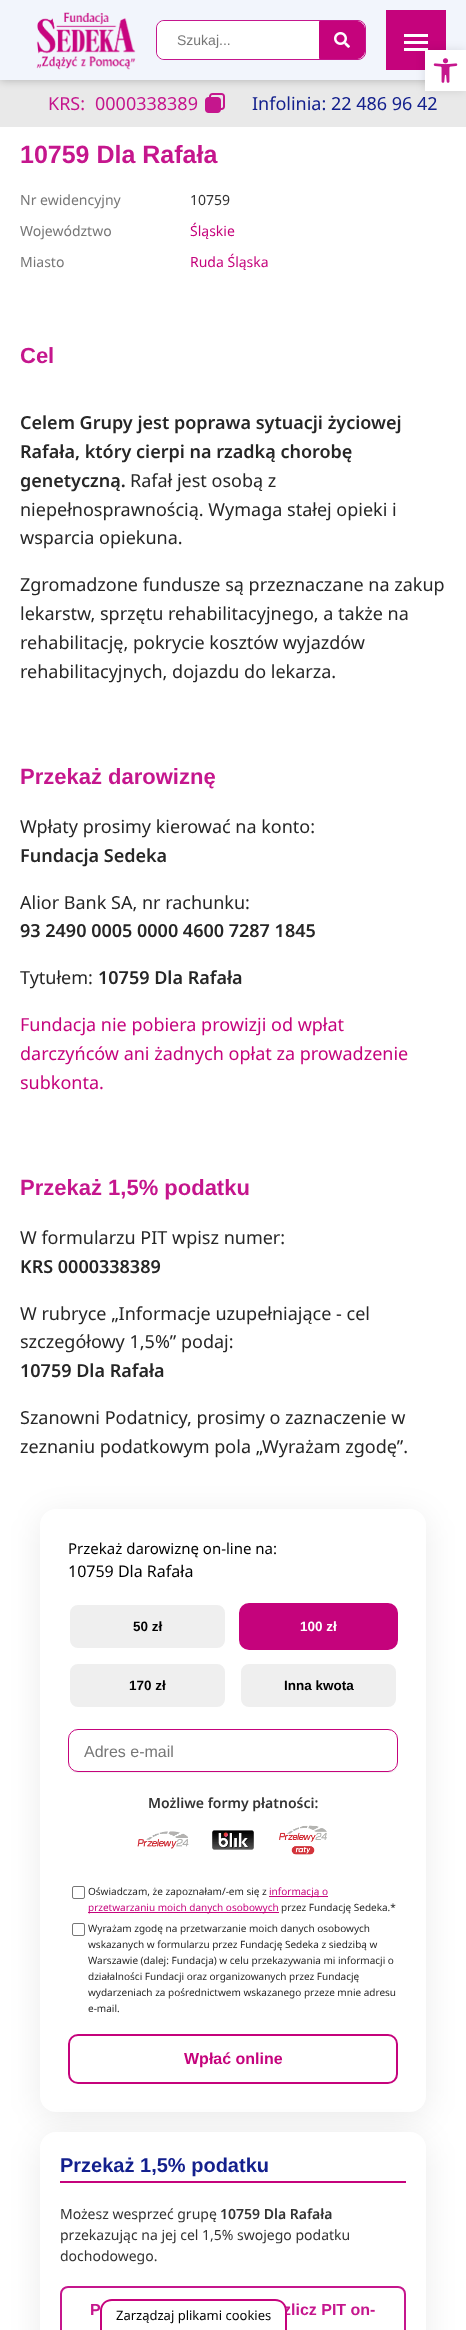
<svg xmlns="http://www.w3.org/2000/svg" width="466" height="2330">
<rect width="100%" height="100%" fill="#fff"/>
<rect y="80" width="466" height="47" fill="#e9e9e9"/>
<image x="205" y="93" width="20" height="20" href="media/4.png"/>
<rect width="466" height="80" fill="#00000040" filter="blur(5px)"/>
<rect width="466" height="80" fill="#f2f5fc"/>
<image x="36" y="12" width="100" height="58" href="media/1.png"/>
<rect x="156.5" y="20.5" width="209" height="39" rx="7.5" fill="#fff" stroke="#c5168d"/>
<path d="M165 21h154v38h-154c-4.5 0-8-3.5-8-8v-22c0-4.5 3.5-8 8-8z" fill="#fff"/>
<text x="177" y="45" style="font-family:Liberation Sans;font-size:14px;fill:#777">Szukaj...</text>
<path d="M319.5 21.5h37.5c4 0 7.5 3.5 7.5 7.5v22c0 4-3.5 7.5-7.5 7.5h-37.5z" fill="#c5037c" stroke="#c5037c"/>
<image x="334" y="32" width="16" height="16" href="media/2.png"/>
<rect x="386" y="10" width="60" height="60" fill="#c5037c"/>
<rect x="404" y="34" width="24" height="3" fill="#fff"/>
<rect x="404" y="48" width="24" height="3" fill="#fff"/>
<rect x="404" y="41" width="24" height="3" fill="#fff"/>
<rect x="425" y="50" width="41" height="41" fill="#0000001a" filter="blur(5px)"/>
<rect x="425" y="50" width="41" height="41" fill="#fff"/>
<image x="433" y="58" width="25" height="25" href="media/3.png"/>
<text x="48" y="110" style="font-family:Noto Sans;font-size:18px;fill:#c5168d">KRS:</text>
<text x="95" y="110" style="font-family:Noto Sans;font-size:18px;fill:#c5168d">0000338389</text>
<text x="252" y="110" style="font-family:Noto Sans;font-size:18px;fill:#13208d">Infolinia: 22 486 96 42</text>
<text x="20" y="163" style="font-family:Liberation Sans;font-size:25px;font-weight:bold;fill:#c5168d">10759 Dla Rafała</text>
<text x="20" y="205" style="font-family:Noto Sans;font-size:14px;fill:#777">Nr ewidencyjny</text>
<text x="190" y="205" style="font-family:Noto Sans;font-size:14px;fill:#333">10759</text>
<text x="20" y="236" style="font-family:Noto Sans;font-size:14px;fill:#777">Województwo</text>
<text x="190" y="236" style="font-family:Noto Sans;font-size:14px;fill:#c5037c">Śląskie</text>
<text x="20" y="267" style="font-family:Noto Sans;font-size:14px;fill:#777">Miasto</text>
<text x="190" y="267" style="font-family:Noto Sans;font-size:14px;fill:#c5037c">Ruda Śląska</text>
<text x="20" y="363" style="font-family:Liberation Sans;font-size:22px;font-weight:bold;fill:#c5168d">Cel</text>
<text x="20" y="429" style="font-family:Noto Sans;font-size:18px;font-weight:600;fill:#262626">Celem Grupy jest poprawa sytuacji życiowej</text>
<text x="20" y="458" style="font-family:Noto Sans;font-size:18px;font-weight:600;fill:#262626">Rafała, który cierpi na rzadką chorobę</text>
<text x="20" y="487" style="font-family:Noto Sans;font-size:18px;font-weight:600;fill:#262626">genetyczną.</text>
<text x="130" y="487" style="font-family:Noto Sans;font-size:18px;fill:#262626">Rafał jest osobą z</text>
<text x="20" y="516" style="font-family:Noto Sans;font-size:18px;fill:#262626">niepełnosprawnością. Wymaga stałej opieki i</text>
<text x="20" y="544" style="font-family:Noto Sans;font-size:18px;fill:#262626">wsparcia opiekuna.</text>
<text x="20" y="591" style="font-family:Noto Sans;font-size:18px;fill:#262626">Zgromadzone fundusze są przeznaczane na zakup</text>
<text x="20" y="620" style="font-family:Noto Sans;font-size:18px;fill:#262626">lekarstw, sprzętu rehabilitacyjnego, a także na</text>
<text x="20" y="649" style="font-family:Noto Sans;font-size:18px;fill:#262626">rehabilitację, pokrycie kosztów wyjazdów</text>
<text x="20" y="678" style="font-family:Noto Sans;font-size:18px;fill:#262626">rehabilitacyjnych, dojazdu do lekarza.</text>
<text x="20" y="784" style="font-family:Liberation Sans;font-size:22px;font-weight:bold;fill:#c5168d">Przekaż darowiznę</text>
<text x="20" y="833" style="font-family:Noto Sans;font-size:18px;fill:#262626">Wpłaty prosimy kierować na konto:</text>
<text x="20" y="862" style="font-family:Noto Sans;font-size:18px;font-weight:600;fill:#262626">Fundacja Sedeka</text>
<text x="20" y="909" style="font-family:Noto Sans;font-size:18px;fill:#262626">Alior Bank SA, nr rachunku:</text>
<text x="20" y="937" style="font-family:Noto Sans;font-size:18px;font-weight:600;fill:#262626">93 2490 0005 0000 4600 7287 1845</text>
<text x="20" y="984" style="font-family:Noto Sans;font-size:18px;fill:#262626">Tytułem:</text>
<text x="98" y="984" style="font-family:Noto Sans;font-size:18px;font-weight:600;fill:#262626">10759 Dla Rafała</text>
<text x="20" y="1031" style="font-family:Noto Sans;font-size:18px;fill:#c5037c">Fundacja nie pobiera prowizji od wpłat</text>
<text x="20" y="1060" style="font-family:Noto Sans;font-size:18px;fill:#c5037c">darczyńców ani żadnych opłat za prowadzenie</text>
<text x="20" y="1089" style="font-family:Noto Sans;font-size:18px;fill:#c5037c">subkonta.</text>
<text x="20" y="1195" style="font-family:Liberation Sans;font-size:22px;font-weight:bold;fill:#c5168d">Przekaż 1,5% podatku</text>
<text x="20" y="1244" style="font-family:Noto Sans;font-size:18px;fill:#262626">W formularzu PIT wpisz numer:</text>
<text x="20" y="1273" style="font-family:Noto Sans;font-size:18px;font-weight:600;fill:#262626">KRS 0000338389</text>
<text x="20" y="1320" style="font-family:Noto Sans;font-size:18px;fill:#262626">W rubryce „Informacje uzupełniające - cel</text>
<text x="20" y="1348" style="font-family:Noto Sans;font-size:18px;fill:#262626">szczegółowy 1,5%” podaj:</text>
<text x="20" y="1377" style="font-family:Noto Sans;font-size:18px;font-weight:600;fill:#262626">10759 Dla Rafała</text>
<text x="20" y="1424" style="font-family:Noto Sans;font-size:18px;fill:#262626">Szanowni Podatnicy, prosimy o zaznaczenie w</text>
<text x="20" y="1453" style="font-family:Noto Sans;font-size:18px;fill:#262626">zeznaniu podatkowym pola „Wyrażam zgodę”.</text>
<rect x="40" y="1515" width="386" height="603" rx="16" fill="#00000014" filter="blur(16px)"/>
<rect x="40" y="1509" width="386" height="603" rx="16" fill="#fff"/>
<text x="68" y="1554" style="font-family:Noto Sans;font-size:15px;fill:#000">Przekaż darowiznę on-line na:</text>
<text x="68" y="1577" style="font-family:Noto Sans;font-size:16px;fill:#000">10759 Dla Rafała</text>
<rect x="69" y="1604" width="157" height="45" rx="9" fill="#efefef" stroke="#fff" stroke-width="2"/>
<text x="133" y="1631" style="font-family:Liberation Sans;font-size:13.5px;font-weight:bold;fill:#000">50 zł</text>
<rect x="240" y="1604" width="157" height="45" rx="9" fill="#c5037c" stroke="#c5037c" stroke-width="2"/>
<text x="300" y="1631" style="font-family:Liberation Sans;font-size:13.5px;font-weight:bold;fill:#fff">100 zł</text>
<rect x="69" y="1663" width="157" height="45" rx="9" fill="#efefef" stroke="#fff" stroke-width="2"/>
<text x="129" y="1690" style="font-family:Liberation Sans;font-size:13.5px;font-weight:bold;fill:#000">170 zł</text>
<rect x="240" y="1663" width="157" height="45" rx="9" fill="#efefef" stroke="#fff" stroke-width="2"/>
<text x="284" y="1690" style="font-family:Liberation Sans;font-size:13.5px;font-weight:bold;fill:#000">Inna kwota</text>
<path d="M68 1762v1c0 6 4 10 10 10h310c6 0 10-4 10-10v-1c0 6-4 10-10 10h-310c-6 0-10-4-10-10z" fill="#f2f2f2"/>
<rect x="68.5" y="1729.5" width="329" height="42" rx="9.5" fill="none" stroke="#c5037c"/>
<text x="84" y="1757" style="font-family:Liberation Sans;font-size:16px;fill:#777">Adres e-mail</text>
<text x="148" y="1808" style="font-family:Noto Sans;font-size:14px;font-weight:600;fill:#333">Możliwe formy płatności:</text>
<image x="137" y="1831" width="52" height="18" href="media/5.png"/>
<image x="212" y="1830" width="42" height="20" href="media/6.png"/>
<image x="279" y="1825" width="48" height="30" href="media/7.png"/>
<rect x="72.5" y="1886.5" width="12" height="12" rx="1.5" fill="none" stroke="#767676"/>
<text x="88" y="1895" style="font-family:Noto Sans;font-size:10px;fill:#262626">Oświadczam, że zapoznałam/-em się z</text>
<rect x="269" y="1896" width="59" height="1" fill="#c5037c"/>
<text x="269" y="1895" style="font-family:Noto Sans;font-size:10px;fill:#c5037c">informacją o</text>
<rect x="88" y="1912" width="191" height="1" fill="#c5037c"/>
<text x="88" y="1911" style="font-family:Noto Sans;font-size:10px;fill:#c5037c">przetwarzaniu moich danych osobowych</text>
<text x="281" y="1911" style="font-family:Noto Sans;font-size:10px;fill:#262626">przez Fundację Sedeka.*</text>
<rect x="72.5" y="1923.5" width="12" height="12" rx="1.5" fill="none" stroke="#767676"/>
<text x="88" y="1932" style="font-family:Noto Sans;font-size:10px;fill:#262626">Wyrażam zgodę na przetwarzanie moich danych osobowych</text>
<text x="88" y="1948" style="font-family:Noto Sans;font-size:10px;fill:#262626">wskazanych w formularzu przez Fundację Sedeka z siedzibą w</text>
<text x="88" y="1964" style="font-family:Noto Sans;font-size:10px;fill:#262626">Warszawie (dalej: Fundacja) w celu przekazywania mi informacji o</text>
<text x="88" y="1980" style="font-family:Noto Sans;font-size:10px;fill:#262626">działalności Fundacji oraz organizowanych przez Fundację</text>
<text x="88" y="1996" style="font-family:Noto Sans;font-size:10px;fill:#262626">wydarzeniach za pośrednictwem wskazanego przeze mnie adresu</text>
<text x="88" y="2012" style="font-family:Noto Sans;font-size:10px;fill:#262626">e-mail.</text>
<rect x="69" y="2035" width="328" height="48" rx="9" fill="none" stroke="#c5037c" stroke-width="2"/>
<text x="184" y="2064" style="font-family:Liberation Sans;font-size:16px;font-weight:bold;fill:#c5037c">Wpłać online</text>
<rect x="40" y="2138" width="386" height="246" rx="16" fill="#00000014" filter="blur(16px)"/>
<rect x="40" y="2132" width="386" height="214" rx="16" fill="#fff"/>
<rect x="60" y="2181" width="346" height="2" fill="#c5037c"/>
<text x="60" y="2172" style="font-family:Liberation Sans;font-size:20px;font-weight:bold;fill:#13208d">Przekaż 1,5% podatku</text>
<text x="60" y="2219" style="font-family:Noto Sans;font-size:14px;fill:#333">Możesz wesprzeć grupę</text>
<text x="220" y="2219" style="font-family:Noto Sans;font-size:14px;font-weight:600;fill:#333">10759 Dla Rafała</text>
<text x="60" y="2240" style="font-family:Noto Sans;font-size:14px;fill:#333">przekazując na jej cel 1,5% swojego podatku</text>
<text x="60" y="2261" style="font-family:Noto Sans;font-size:14px;fill:#333">dochodowego.</text>
<rect x="61" y="2287" width="344" height="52" rx="7" fill="none" stroke="#c5168d" stroke-width="2"/>
<text x="90" y="2315" style="font-family:Liberation Sans;font-size:16px;font-weight:bold;fill:#c5168d">P</text>
<text x="283" y="2315" style="font-family:Liberation Sans;font-size:16px;font-weight:bold;fill:#c5168d">zlicz PIT on-</text>
<path d="M113 2299h161c7 0 13 6 13 13v18h-187v-18c0-7 6-13 13-13z" fill="#fff"/>
<path d="M112 2299h163c7 0 12 5 12 12v19h-187v-19c0-7 5-12 12-12zm0 2h163c6 0 10 4 10 10v19h-183v-19c0-6 4-10 10-10z" fill="#c5037c" fill-rule="evenodd"/>
<text x="116" y="2320" style="font-family:Noto Sans;font-size:13px;fill:#000">Zarządzaj plikami cookies</text>
</svg>
